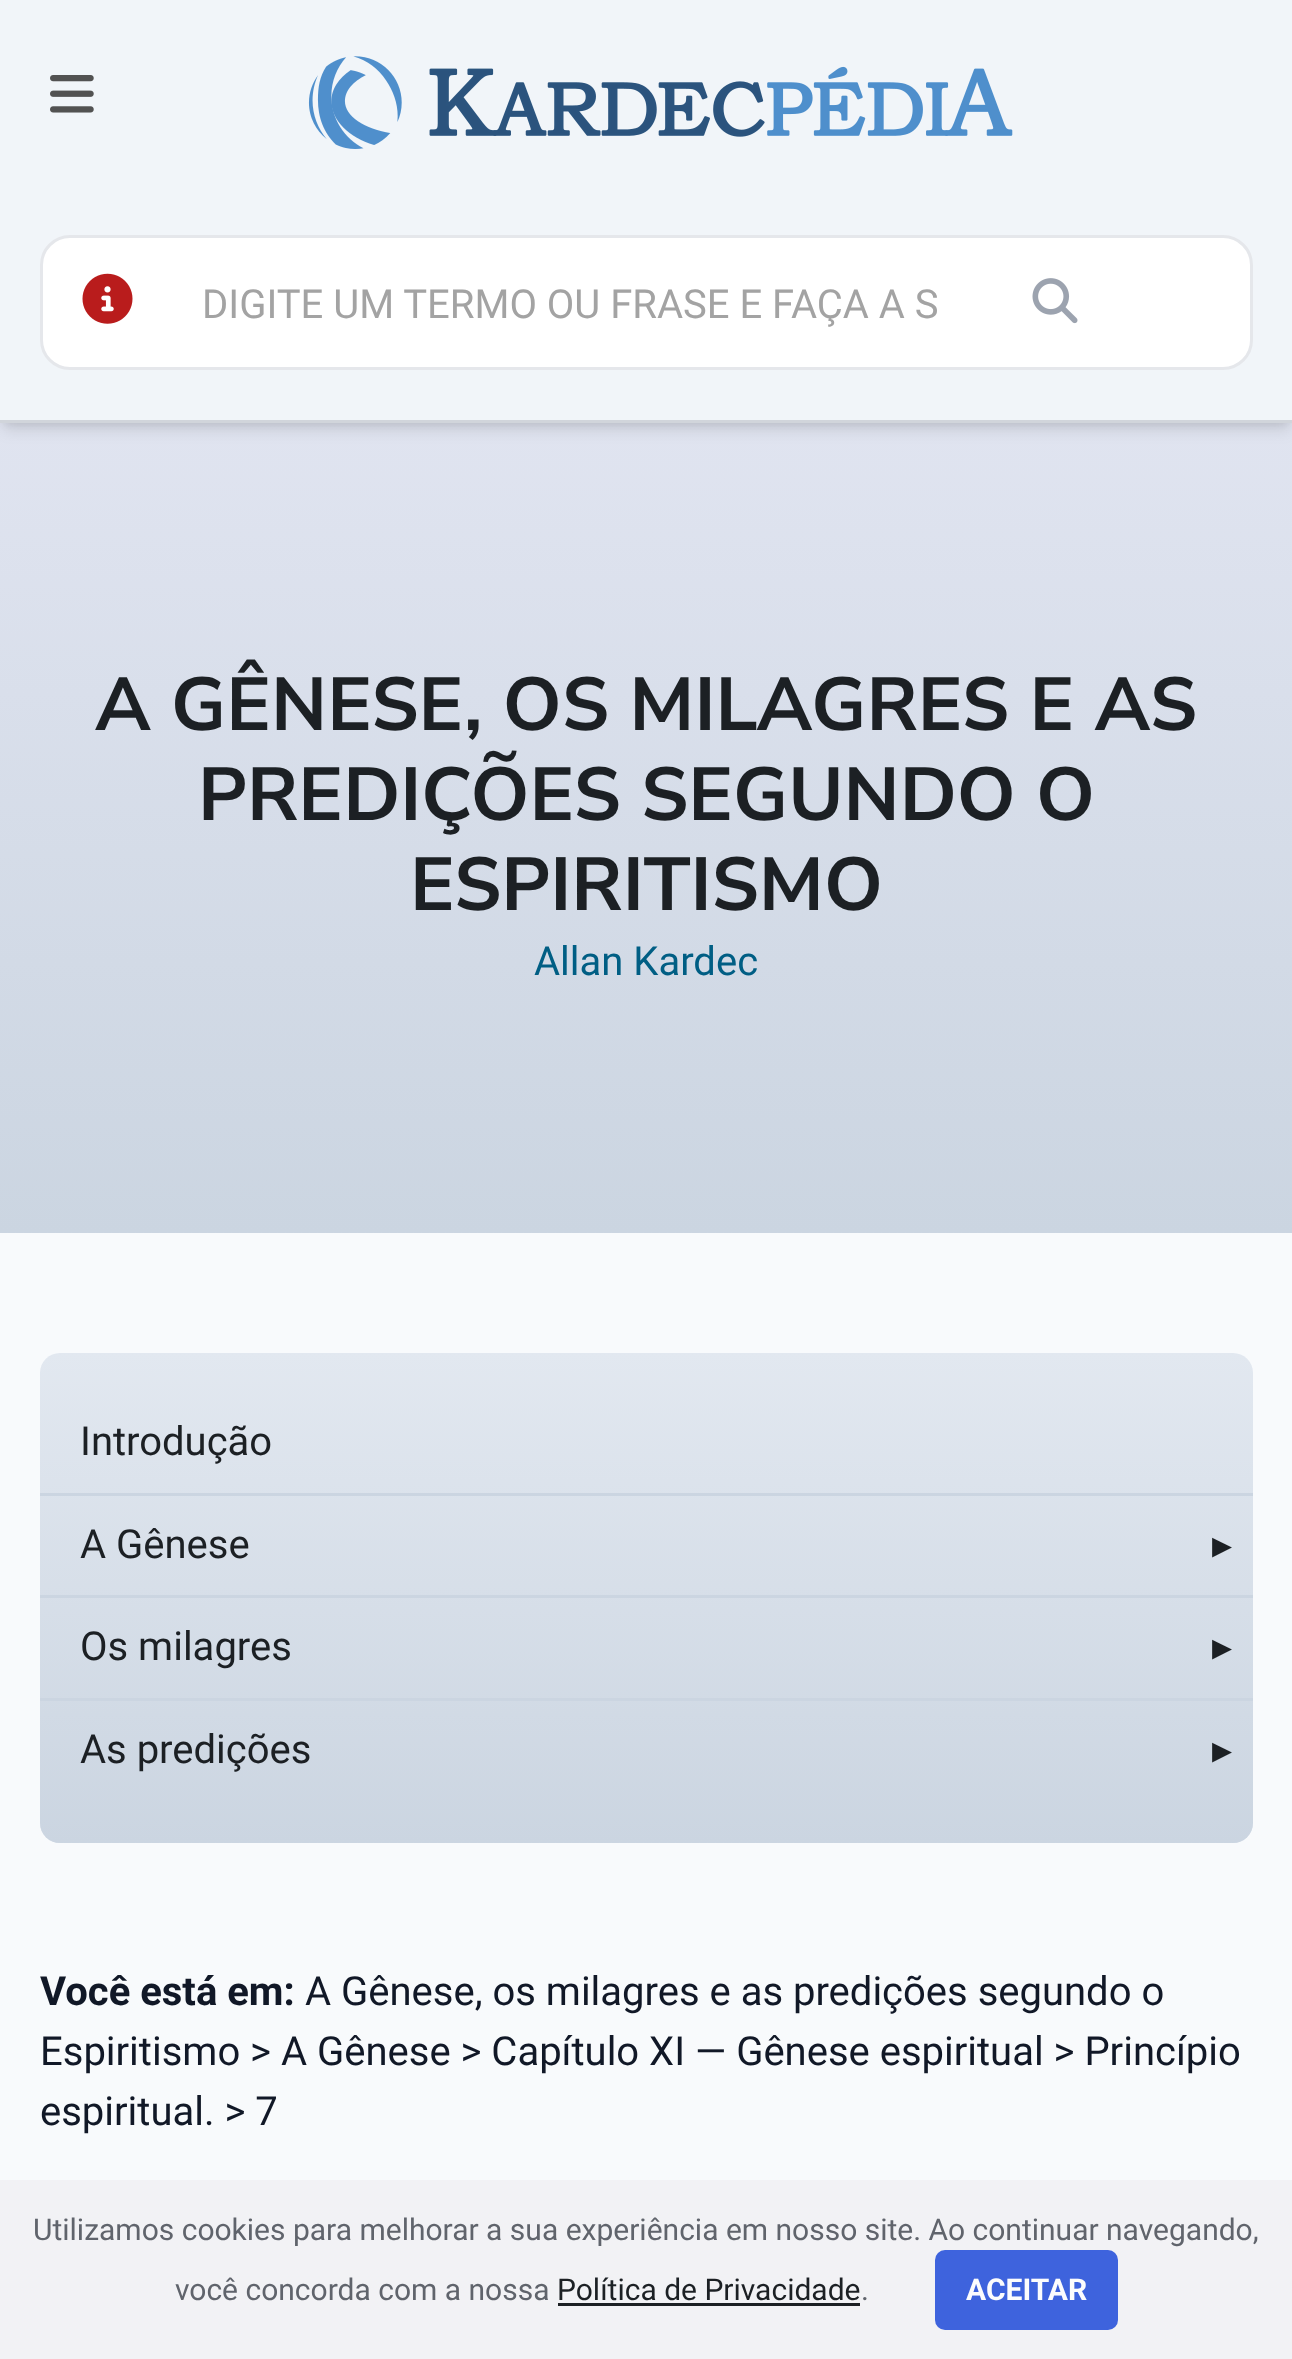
<svg xmlns="http://www.w3.org/2000/svg" width="1292" height="2359">
<defs>
<linearGradient id="g1" gradientUnits="userSpaceOnUse" x1="646" y1="1233" x2="646" y2="423"><stop offset="0" stop-color="#cbd5e1"/><stop offset="1" stop-color="#e0e4f0"/></linearGradient>
<linearGradient id="g2" gradientUnits="userSpaceOnUse" x1="646" y1="1843" x2="646" y2="1353"><stop offset="0" stop-color="#cbd5e1"/><stop offset="1" stop-color="#cbd5e1" stop-opacity="0"/></linearGradient>
</defs>
<rect width="100%" height="100%" fill="#fff"/>
<rect y="423" width="1292" height="810" fill="url(#g1)"/>
<rect x="5" y="10" width="1283" height="413" fill="#0000001a" filter="blur(5px)"/>
<rect x="3" y="13" width="1287" height="417" fill="#0000001a" filter="blur(7.5px)"/>
<rect width="1292" height="420" fill="#f1f5f9"/>
<rect y="420" width="1292" height="3" fill="#d1d5db"/>
<image x="50" y="75" width="44" height="38" href="media/1.png"/>
<image x="308" y="56" width="705" height="93" href="media/2.png"/>
<rect x="41.5" y="236.5" width="1210" height="132" rx="28.5" fill="#fff" stroke="#e5e7eb" stroke-width="3"/>
<image x="82" y="273" width="51" height="51" href="media/3.png"/>
<text x="202" y="318" style="font-family:Roboto;font-size:40px;fill:#a3a3a3">DIGITE UM TERMO OU FRASE E FAÇA A S</text>
<image x="1032" y="278" width="46" height="46" href="media/4.png"/>
<text x="95" y="730" style="font-family:Nunito Sans;font-size:75px;font-weight:bold;fill:#1c2024">A GÊNESE, OS MILAGRES E AS</text>
<text x="198" y="820" style="font-family:Nunito Sans;font-size:75px;font-weight:bold;fill:#1c2024">PREDIÇÕES SEGUNDO O</text>
<text x="410" y="910" style="font-family:Nunito Sans;font-size:75px;font-weight:bold;fill:#1c2024">ESPIRITISMO</text>
<text x="534" y="975" style="font-family:Roboto;font-size:40px;fill:#005e84">Allan Kardec</text>
<rect y="1233" width="1292" height="947" fill="#f8fafc"/>
<rect x="40" y="1353" width="1213" height="490" rx="20" fill="#e2e8f0"/>
<rect x="40" y="1353" width="1213" height="490" rx="20" fill="url(#g2)"/>
<rect x="40" y="1493" width="1213" height="3" fill="#cbd5e1"/>
<text x="80" y="1455" style="font-family:Roboto;font-size:40px;fill:#1c2024">Introdução</text>
<rect x="40" y="1595" width="1213" height="3" fill="#cbd5e1"/>
<text x="80" y="1558" style="font-family:Roboto;font-size:40px;fill:#1c2024">A Gênese</text>
<text x="1212" y="1558" style="font-family:DejaVu Sans;font-size:40px;fill:#1c2024">▸</text>
<rect x="40" y="1698" width="1213" height="3" fill="#cbd5e1"/>
<text x="80" y="1660" style="font-family:Roboto;font-size:40px;fill:#1c2024">Os milagres</text>
<text x="1212" y="1660" style="font-family:DejaVu Sans;font-size:40px;fill:#1c2024">▸</text>
<text x="80" y="1763" style="font-family:Roboto;font-size:40px;fill:#1c2024">As predições</text>
<text x="1212" y="1763" style="font-family:DejaVu Sans;font-size:40px;fill:#1c2024">▸</text>
<text x="40" y="2005" style="font-family:Roboto;font-size:40px;font-weight:bold;fill:#111827">Você está em:</text>
<text x="305" y="2005" style="font-family:Roboto;font-size:40px;fill:#111827">A Gênese, os milagres e as predições segundo o</text>
<text x="40" y="2065" style="font-family:Roboto;font-size:40px;fill:#111827">Espiritismo &gt; A Gênese &gt; Capítulo XI — Gênese espiritual &gt; Princípio</text>
<text x="40" y="2125" style="font-family:Roboto;font-size:40px;fill:#111827">espiritual. &gt; 7</text>
<rect y="2180" width="1292" height="179" fill="#f2f2f5"/>
<text x="33" y="2240" style="font-family:Roboto;font-size:30px;fill:#60646c">Utilizamos cookies para melhorar a sua experiência em nosso site. Ao continuar navegando,</text>
<text x="175" y="2300" style="font-family:Roboto;font-size:30px;fill:#60646c">você concorda com a nossa</text>
<text x="557" y="2300" style="font-family:Roboto;font-size:30px;fill:#1c2024">Política de Privacidade</text>
<rect x="558" y="2303" width="302" height="3" fill="#1c2024"/>
<text x="861" y="2300" style="font-family:Roboto;font-size:30px;fill:#60646c">.</text>
<rect x="935" y="2250" width="183" height="80" rx="10" fill="#3e63dd"/>
<text x="966" y="2300" style="font-family:Roboto;font-size:30px;font-weight:bold;fill:#fcfcfd">ACEITAR</text>
</svg>
